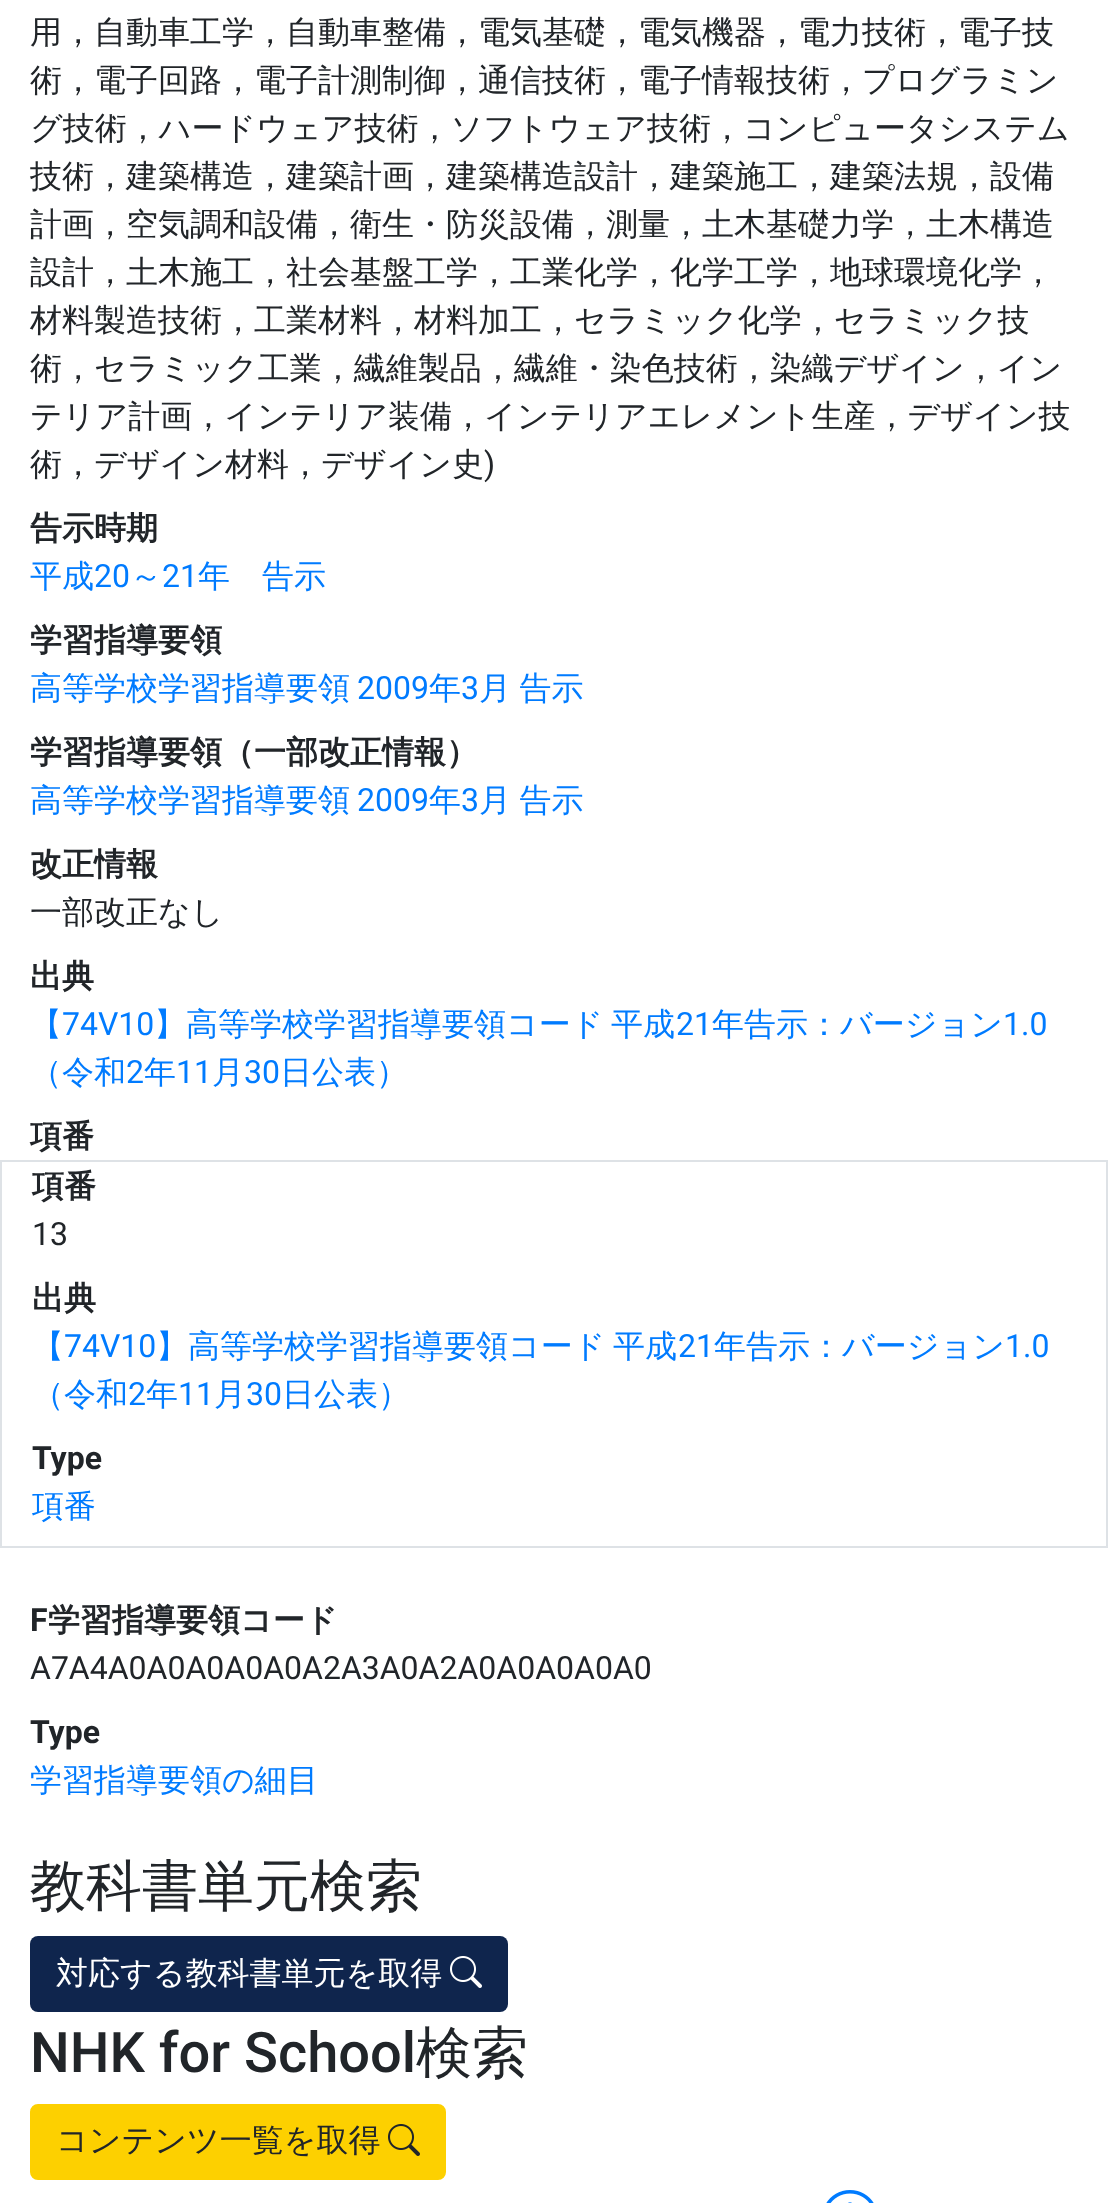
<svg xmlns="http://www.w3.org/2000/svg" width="1108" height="2203">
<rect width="100%" height="100%" fill="#fff"/>
<text x="30" y="43" style="font-family:WenQuanYi Zen Hei;font-size:32px;font-weight:500;fill:#212529">用，自動車工学，自動車整備，電気基礎，電気機器，電力技術，電子技</text>
<text x="30" y="91" style="font-family:WenQuanYi Zen Hei;font-size:32px;font-weight:500;fill:#212529">術，電子回路，電子計測制御，通信技術，電子情報技術，プログラミン</text>
<text x="30" y="139" style="font-family:WenQuanYi Zen Hei;font-size:32px;font-weight:500;fill:#212529">グ技術，ハードウェア技術，ソフトウェア技術，コンピュータシステム</text>
<text x="30" y="187" style="font-family:WenQuanYi Zen Hei;font-size:32px;font-weight:500;fill:#212529">技術，建築構造，建築計画，建築構造設計，建築施工，建築法規，設備</text>
<text x="30" y="235" style="font-family:WenQuanYi Zen Hei;font-size:32px;font-weight:500;fill:#212529">計画，空気調和設備，衛生・防災設備，測量，土木基礎力学，土木構造</text>
<text x="30" y="283" style="font-family:WenQuanYi Zen Hei;font-size:32px;font-weight:500;fill:#212529">設計，土木施工，社会基盤工学，工業化学，化学工学，地球環境化学，</text>
<text x="30" y="331" style="font-family:WenQuanYi Zen Hei;font-size:32px;font-weight:500;fill:#212529">材料製造技術，工業材料，材料加工，セラミック化学，セラミック技</text>
<text x="30" y="379" style="font-family:WenQuanYi Zen Hei;font-size:32px;font-weight:500;fill:#212529">術，セラミック工業，繊維製品，繊維・染色技術，染織デザイン，イン</text>
<text x="30" y="427" style="font-family:WenQuanYi Zen Hei;font-size:32px;font-weight:500;fill:#212529">テリア計画，インテリア装備，インテリアエレメント生産，デザイン技</text>
<text x="30" y="475" style="font-family:WenQuanYi Zen Hei;font-size:32px;font-weight:500;fill:#212529">術，デザイン材料，デザイン史</text>
<text x="484" y="475" style="font-family:Roboto;font-size:32px;fill:#212529">)</text>
<text x="30" y="539" style="font-family:WenQuanYi Zen Hei;font-size:32px;font-weight:bold;fill:#212529">告示時期</text>
<text x="30" y="587" style="font-family:WenQuanYi Zen Hei;font-size:32px;font-weight:500;fill:#007bff">平成</text>
<text x="94" y="587" style="font-family:Roboto;font-size:32px;fill:#007bff">20</text>
<text x="130" y="587" style="font-family:WenQuanYi Zen Hei;font-size:32px;font-weight:500;fill:#007bff">～</text>
<text x="162" y="587" style="font-family:Roboto;font-size:32px;fill:#007bff">21</text>
<text x="198" y="587" style="font-family:WenQuanYi Zen Hei;font-size:32px;font-weight:500;fill:#007bff">年　告示</text>
<text x="30" y="651" style="font-family:WenQuanYi Zen Hei;font-size:32px;font-weight:bold;fill:#212529">学習指導要領</text>
<text x="30" y="699" style="font-family:WenQuanYi Zen Hei;font-size:32px;font-weight:500;fill:#007bff">高等学校学習指導要領</text>
<text x="357" y="699" style="font-family:Roboto;font-size:32px;fill:#007bff">2009</text>
<text x="429" y="699" style="font-family:WenQuanYi Zen Hei;font-size:32px;font-weight:500;fill:#007bff">年</text>
<text x="461" y="699" style="font-family:Roboto;font-size:32px;fill:#007bff">3</text>
<text x="479" y="699" word-spacing="-1" style="font-family:WenQuanYi Zen Hei;font-size:32px;font-weight:500;fill:#007bff">月 告示</text>
<text x="30" y="763" style="font-family:WenQuanYi Zen Hei;font-size:32px;font-weight:bold;fill:#212529">学習指導要領（一部改正情報）</text>
<text x="30" y="811" style="font-family:WenQuanYi Zen Hei;font-size:32px;font-weight:500;fill:#007bff">高等学校学習指導要領</text>
<text x="357" y="811" style="font-family:Roboto;font-size:32px;fill:#007bff">2009</text>
<text x="429" y="811" style="font-family:WenQuanYi Zen Hei;font-size:32px;font-weight:500;fill:#007bff">年</text>
<text x="461" y="811" style="font-family:Roboto;font-size:32px;fill:#007bff">3</text>
<text x="479" y="811" word-spacing="-1" style="font-family:WenQuanYi Zen Hei;font-size:32px;font-weight:500;fill:#007bff">月 告示</text>
<text x="30" y="875" style="font-family:WenQuanYi Zen Hei;font-size:32px;font-weight:bold;fill:#212529">改正情報</text>
<text x="30" y="923" style="font-family:WenQuanYi Zen Hei;font-size:32px;font-weight:500;fill:#212529">一部改正なし</text>
<text x="30" y="987" style="font-family:WenQuanYi Zen Hei;font-size:32px;font-weight:bold;fill:#212529">出典</text>
<text x="30" y="1035" style="font-family:WenQuanYi Zen Hei;font-size:32px;font-weight:500;fill:#007bff">【</text>
<text x="62" y="1035" style="font-family:Roboto;font-size:32px;fill:#007bff">74V10</text>
<text x="154" y="1035" word-spacing="-2" style="font-family:WenQuanYi Zen Hei;font-size:32px;font-weight:500;fill:#007bff">】高等学校学習指導要領コード 平成</text>
<text x="676" y="1035" style="font-family:Roboto;font-size:32px;fill:#007bff">21</text>
<text x="712" y="1035" style="font-family:WenQuanYi Zen Hei;font-size:32px;font-weight:500;fill:#007bff">年告示：バージョン</text>
<text x="1003" y="1035" style="font-family:Roboto;font-size:32px;fill:#007bff">1.0</text>
<text x="30" y="1083" style="font-family:WenQuanYi Zen Hei;font-size:32px;font-weight:500;fill:#007bff">（令和</text>
<text x="126" y="1083" style="font-family:Roboto;font-size:32px;fill:#007bff">2</text>
<text x="144" y="1083" style="font-family:WenQuanYi Zen Hei;font-size:32px;font-weight:500;fill:#007bff">年</text>
<text x="176" y="1083" style="font-family:Roboto;font-size:32px;fill:#007bff">11</text>
<text x="212" y="1083" style="font-family:WenQuanYi Zen Hei;font-size:32px;font-weight:500;fill:#007bff">月</text>
<text x="244" y="1083" style="font-family:Roboto;font-size:32px;fill:#007bff">30</text>
<text x="280" y="1083" style="font-family:WenQuanYi Zen Hei;font-size:32px;font-weight:500;fill:#007bff">日公表）</text>
<text x="30" y="1147" style="font-family:WenQuanYi Zen Hei;font-size:32px;font-weight:bold;fill:#212529">項番</text>
<rect x="1" y="1161" width="1106" height="386" fill="none" stroke="#dee2e6" stroke-width="2"/>
<text x="32" y="1197" style="font-family:WenQuanYi Zen Hei;font-size:32px;font-weight:bold;fill:#212529">項番</text>
<text x="32" y="1245" style="font-family:Roboto;font-size:32px;fill:#212529">13</text>
<text x="32" y="1309" style="font-family:WenQuanYi Zen Hei;font-size:32px;font-weight:bold;fill:#212529">出典</text>
<text x="32" y="1357" style="font-family:WenQuanYi Zen Hei;font-size:32px;font-weight:500;fill:#007bff">【</text>
<text x="64" y="1357" style="font-family:Roboto;font-size:32px;fill:#007bff">74V10</text>
<text x="156" y="1357" word-spacing="-2" style="font-family:WenQuanYi Zen Hei;font-size:32px;font-weight:500;fill:#007bff">】高等学校学習指導要領コード 平成</text>
<text x="678" y="1357" style="font-family:Roboto;font-size:32px;fill:#007bff">21</text>
<text x="714" y="1357" style="font-family:WenQuanYi Zen Hei;font-size:32px;font-weight:500;fill:#007bff">年告示：バージョン</text>
<text x="1005" y="1357" style="font-family:Roboto;font-size:32px;fill:#007bff">1.0</text>
<text x="32" y="1405" style="font-family:WenQuanYi Zen Hei;font-size:32px;font-weight:500;fill:#007bff">（令和</text>
<text x="128" y="1405" style="font-family:Roboto;font-size:32px;fill:#007bff">2</text>
<text x="146" y="1405" style="font-family:WenQuanYi Zen Hei;font-size:32px;font-weight:500;fill:#007bff">年</text>
<text x="178" y="1405" style="font-family:Roboto;font-size:32px;fill:#007bff">11</text>
<text x="214" y="1405" style="font-family:WenQuanYi Zen Hei;font-size:32px;font-weight:500;fill:#007bff">月</text>
<text x="246" y="1405" style="font-family:Roboto;font-size:32px;fill:#007bff">30</text>
<text x="282" y="1405" style="font-family:WenQuanYi Zen Hei;font-size:32px;font-weight:500;fill:#007bff">日公表）</text>
<text x="32" y="1469" style="font-family:Roboto;font-size:32px;font-weight:bold;fill:#212529">Type</text>
<text x="32" y="1517" style="font-family:WenQuanYi Zen Hei;font-size:32px;font-weight:500;fill:#007bff">項番</text>
<text x="30" y="1631" style="font-family:Roboto;font-size:32px;font-weight:bold;fill:#212529">F</text>
<text x="48" y="1631" style="font-family:WenQuanYi Zen Hei;font-size:32px;font-weight:bold;fill:#212529">学習指導要領コード</text>
<text x="30" y="1679" style="font-family:Roboto;font-size:32px;fill:#212529">A7A4A0A0A0A0A0A2A3A0A2A0A0A0A0A0</text>
<text x="30" y="1743" style="font-family:Roboto;font-size:32px;font-weight:bold;fill:#212529">Type</text>
<text x="30" y="1791" style="font-family:WenQuanYi Zen Hei;font-size:32px;font-weight:500;fill:#007bff">学習指導要領の細目</text>
<text x="30" y="1905" style="font-family:WenQuanYi Zen Hei;font-size:56px;font-weight:500;fill:#212529">教科書単元検索</text>
<rect x="30" y="1936" width="478" height="76" rx="8" fill="#0f254d"/>
<text x="56" y="1984" style="font-family:WenQuanYi Zen Hei;font-size:32px;font-weight:500;fill:#fff">対応する教科書単元を取得</text>
<image x="450" y="1956" width="32" height="32" href="media/1.png"/>
<text x="30" y="2072" style="font-family:Roboto;font-size:56px;font-weight:500;fill:#212529">NHK for School</text>
<text x="416" y="2072" style="font-family:WenQuanYi Zen Hei;font-size:56px;font-weight:500;fill:#212529">検索</text>
<rect x="31" y="2105" width="414" height="74" rx="7" fill="#fdd000" stroke="#fdd000" stroke-width="2"/>
<text x="56" y="2151" style="font-family:WenQuanYi Zen Hei;font-size:32px;font-weight:500;fill:#212529">コンテンツ一覧を取得</text>
<image x="388" y="2124" width="32" height="32" href="media/2.png"/>
<image x="826" y="2190" width="48" height="13" href="media/3.png"/>
</svg>
